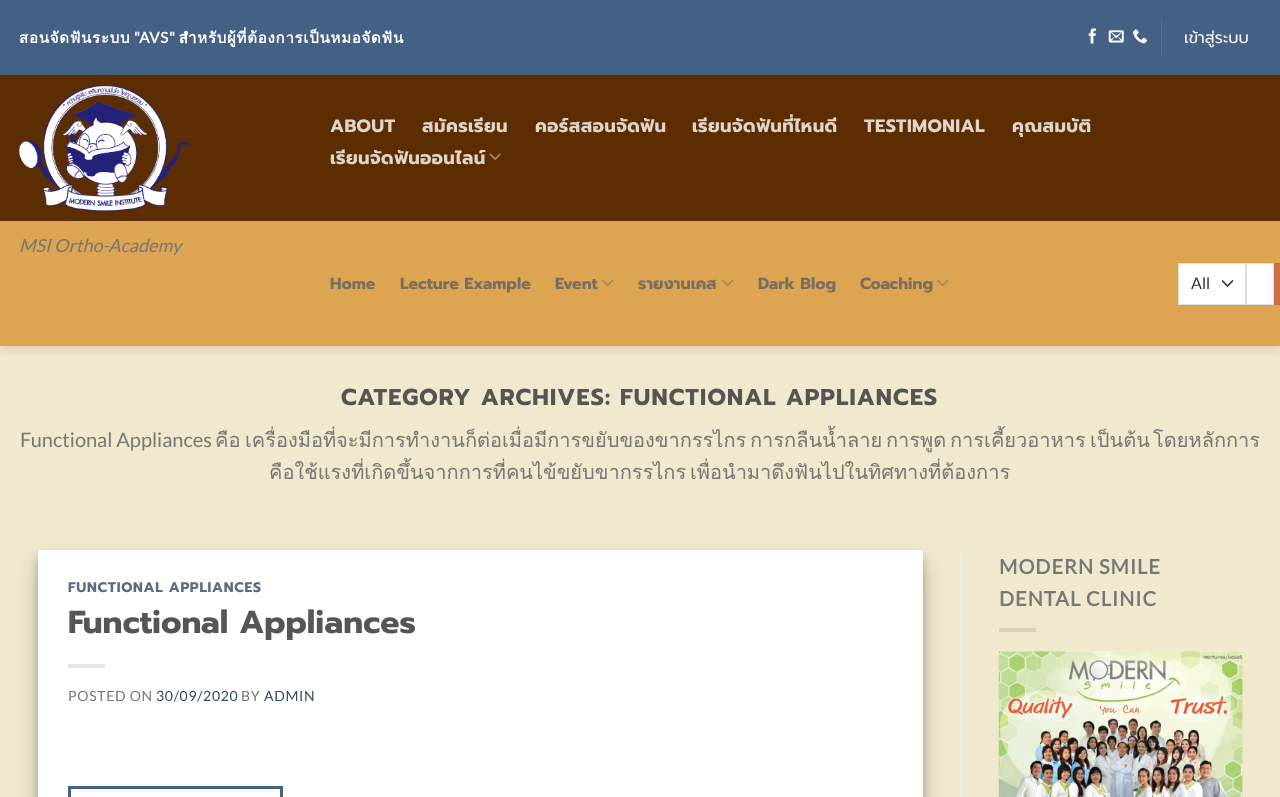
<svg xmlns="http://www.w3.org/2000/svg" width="1280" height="797">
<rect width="100%" height="100%" fill="#f1e9ce"/>
<rect x="1" y="1" width="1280" height="347" fill="#00000026" filter="blur(6px)"/>
<rect y="75" width="1280" height="146" fill="#5b2d00"/>
<rect width="1280" height="75" fill="#446084"/>
<text x="19" y="43" style="font-family:Loma;font-size:15px;font-weight:bold;letter-spacing:0.75px;fill:#fff">สอนจัดฟันระบบ</text>
<text x="134" y="43" style="font-family:Lato;font-size:15px;font-weight:bold;letter-spacing:0.75px;fill:#fff">"AVS"</text>
<text x="179" y="43" style="font-family:Loma;font-size:15px;font-weight:bold;letter-spacing:0.75px;fill:#fff">สำหรับผู้ที่ต้องการเป็นหมอจัดฟัน</text>
<image x="1088" y="28" width="8" height="16" href="media/1.png"/>
<image x="1108" y="30" width="16" height="13" href="media/2.png"/>
<image x="1133" y="29" width="14" height="15" href="media/3.png"/>
<rect x="1161" y="19" width="1" height="37" fill="#577090"/>
<text x="1184" y="43" style="font-family:Prompt;font-size:16px;fill:#f7f7f7">เข้าสู่ระบบ</text>
<text x="330" y="132" style="font-family:Prompt;font-size:18px;font-weight:bold;letter-spacing:0.4px;fill:#ded5cc">ABOUT</text>
<text x="422" y="132" style="font-family:Prompt;font-size:18px;font-weight:bold;letter-spacing:0.4px;fill:#ded5cc">สมัครเรียน</text>
<text x="535" y="132" style="font-family:Prompt;font-size:18px;font-weight:bold;letter-spacing:0.4px;fill:#ded5cc">คอร์สสอนจัดฟัน</text>
<text x="692" y="132" style="font-family:Prompt;font-size:18px;font-weight:bold;letter-spacing:0.4px;fill:#ded5cc">เรียนจัดฟันที่ไหนดี</text>
<text x="864" y="132" style="font-family:Prompt;font-size:18px;font-weight:bold;letter-spacing:0.4px;fill:#ded5cc">TESTIMONIAL</text>
<text x="1012" y="132" style="font-family:Prompt;font-size:18px;font-weight:bold;letter-spacing:0.4px;fill:#ded5cc">คุณสมบัติ</text>
<text x="330" y="164" style="font-family:Prompt;font-size:18px;font-weight:bold;letter-spacing:0.4px;fill:#ded5cc">เรียนจัดฟันออนไลน์</text>
<image x="489" y="153" width="12" height="7" href="media/4.png"/>
<image x="18" y="85" width="174" height="127" href="media/5.png"/>
<rect y="221" width="1280" height="125" fill="#dda552"/>
<text x="19" y="252" style="font-family:Lato;font-size:18px;font-style:italic;fill:#777">MSI Ortho-Academy</text>
<text x="330" y="289" style="font-family:Prompt;font-size:16px;font-weight:bold;fill:#786f63">Home</text>
<text x="400" y="289" style="font-family:Prompt;font-size:16px;font-weight:bold;fill:#786f63">Lecture Example</text>
<text x="555" y="289" style="font-family:Prompt;font-size:16px;font-weight:bold;fill:#786f63">Event</text>
<image x="602" y="279" width="12" height="8" href="media/6.png"/>
<text x="638" y="289" style="font-family:Prompt;font-size:16px;font-weight:bold;fill:#786f63">รายงานเคส</text>
<image x="722" y="279" width="12" height="8" href="media/6.png"/>
<text x="758" y="289" style="font-family:Prompt;font-size:16px;font-weight:bold;fill:#786f63">Dark Blog</text>
<text x="860" y="289" style="font-family:Prompt;font-size:16px;font-weight:bold;fill:#786f63">Coaching</text>
<image x="937" y="279" width="12" height="8" href="media/6.png"/>
<rect x="1179" y="264" width="66" height="40" fill="#fff"/>
<path d="M1222.5 281l5 5l5-5" fill="none" stroke="#333" stroke-width="1.7" stroke-linecap="round" stroke-linejoin="round"/>
<rect x="1178.5" y="263.5" width="67" height="41" fill="none" stroke="#ddd"/>
<text x="1191" y="289" style="font-family:Lato;font-size:16px;fill:#333">All</text>
<rect x="1246.5" y="263.5" width="27" height="41" fill="#fff" stroke="#ddd"/>
<rect x="1274.5" y="263.5" width="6" height="41" fill="#d26e4b" stroke="#c86947"/>
<text x="341" y="405" style="font-family:Prompt;font-size:23px;font-weight:bold;letter-spacing:1.15px;fill:#555">CATEGORY ARCHIVES: FUNCTIONAL APPLIANCES</text>
<text x="20" y="447" style="font-family:Lato;font-size:20px;fill:#777">Functional Appliances</text>
<text x="215" y="447" style="font-family:Loma;font-size:20px;fill:#777">คือ</text>
<text x="245" y="447" style="font-family:Loma;font-size:20px;fill:#777">เครื่องมือที่จะมีการทำงานก็ต่อเมื่อมีการขยับของขากรรไกร</text>
<text x="750" y="447" style="font-family:Loma;font-size:20px;fill:#777">การกลืนน้ำลาย</text>
<text x="886" y="447" style="font-family:Loma;font-size:20px;fill:#777">การพูด</text>
<text x="950" y="447" style="font-family:Loma;font-size:20px;fill:#777">การเคี้ยวอาหาร</text>
<text x="1090" y="447" style="font-family:Loma;font-size:20px;fill:#777">เป็นต้น</text>
<text x="1153" y="447" style="font-family:Loma;font-size:20px;fill:#777">โดยหลักการ</text>
<text x="269" y="479" word-spacing="-3" style="font-family:Loma;font-size:20px;fill:#777">คือใช้แรงที่เกิดขึ้นจากการที่คนไข้ขยับขากรรไกร เพื่อนำมาดึงฟันไปในทิศทางที่ต้องการ</text>
<rect x="38" y="558" width="885" height="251" fill="#00000038" filter="blur(4px)"/>
<rect x="38" y="563" width="885" height="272" fill="#00000030" filter="blur(12.5px)"/>
<rect x="38" y="550" width="885" height="247" fill="#fff"/>
<text x="68" y="592" style="font-family:Prompt;font-size:14px;font-weight:bold;letter-spacing:0.7px;fill:#5c6d81">FUNCTIONAL APPLIANCES</text>
<text x="68" y="633" style="font-family:Prompt;font-size:32px;font-weight:bold;fill:#555">Functional Appliances</text>
<rect x="68" y="664" width="37" height="4" fill="#e6e6e6"/>
<text x="68" y="701" style="font-family:Lato;font-size:14px;letter-spacing:0.7px;fill:#777">POSTED ON</text>
<text x="156" y="701" style="font-family:Lato;font-size:14px;letter-spacing:0.7px;fill:#334862">30/09/2020</text>
<text x="241" y="701" style="font-family:Lato;font-size:14px;letter-spacing:0.7px;fill:#777">BY</text>
<text x="264" y="701" style="font-family:Lato;font-size:14px;letter-spacing:0.7px;fill:#334862">ADMIN</text>
<rect x="69.5" y="787.5" width="212" height="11" fill="none" stroke="#446084" stroke-width="3"/>
<rect x="960" y="550" width="1" height="247" fill="#ececec"/>
<text x="999" y="574" style="font-family:Lato;font-size:20px;font-weight:bold;letter-spacing:1px;fill:#777">MODERN SMILE</text>
<text x="999" y="606" style="font-family:Lato;font-size:20px;font-weight:bold;letter-spacing:1px;fill:#777">DENTAL CLINIC</text>
<rect x="999" y="628" width="37" height="4" fill="#d9d2b9"/>
<image x="998" y="651" width="245" height="146" href="media/7.png"/>
</svg>
